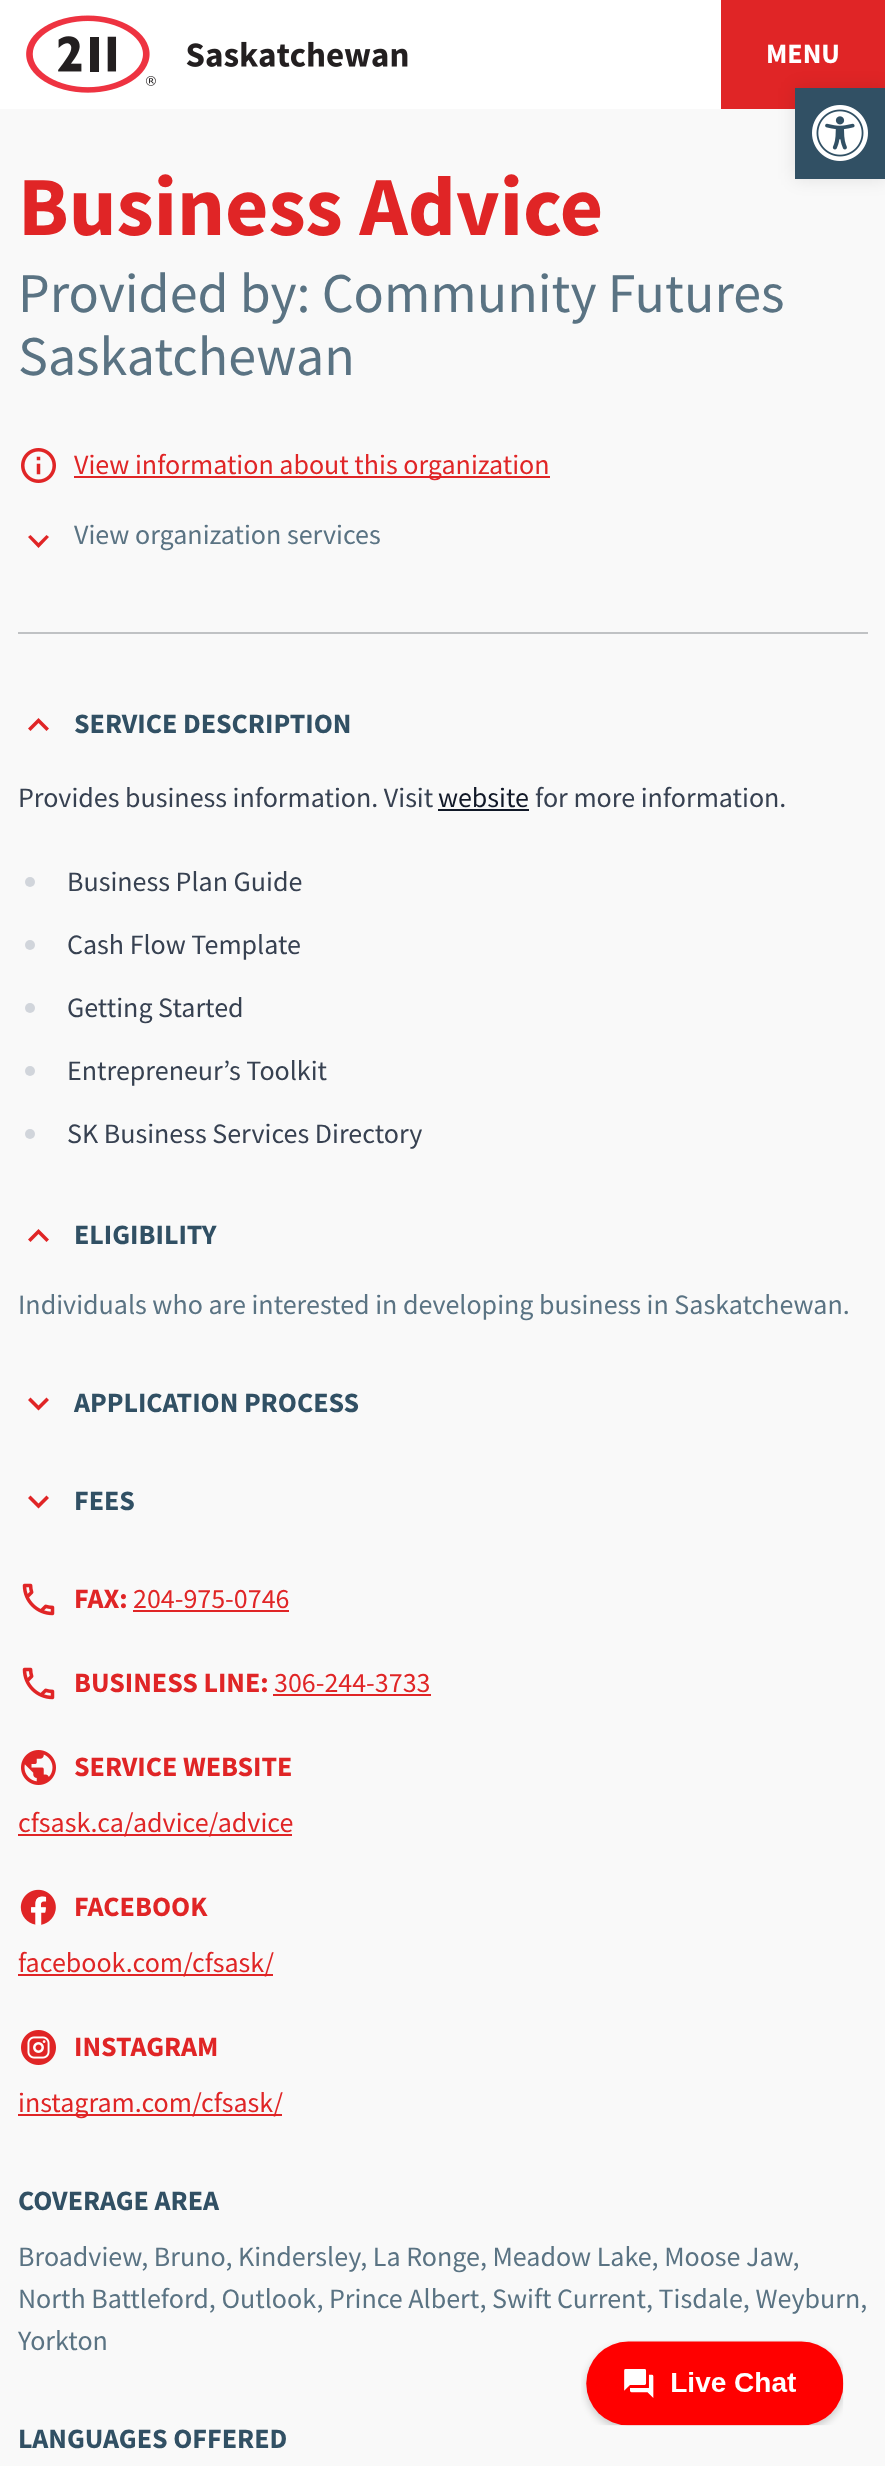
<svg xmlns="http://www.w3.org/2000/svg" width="885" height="2466">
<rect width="100%" height="100%" fill="#f9f9f9"/>
<rect width="721" height="109" fill="#fff"/>
<image x="26" y="15" width="382" height="78" href="media/1.png"/>
<rect x="721" width="164" height="109" fill="#e02526"/>
<text x="766" y="63" style="font-family:Source Sans Pro;font-size:28px;font-weight:bold;fill:#fff">MENU</text>
<text x="18" y="235" style="font-family:Source Sans Pro;font-size:84px;font-weight:bold;fill:#e02526">Business Advice</text>
<text x="18" y="312" style="font-family:Source Sans Pro;font-size:56px;fill:#5a7383">Provided by: Community Futures</text>
<text x="18" y="375" style="font-family:Source Sans Pro;font-size:56px;fill:#5a7383">Saskatchewan</text>
<image x="21" y="448" width="35" height="35" href="media/2.png"/>
<rect x="74" y="476" width="476" height="2" fill="#e02526"/>
<text x="74" y="474" style="font-family:Source Sans Pro;font-size:28px;fill:#e02526">View information about this organization</text>
<path d="M30.5 535l8 8l8-8l2.5 2l-10.5 11l-10.5-11z" fill="#e02526"/>
<text x="74" y="544" style="font-family:Source Sans Pro;font-size:28px;fill:#5a7383">View organization services</text>
<rect x="18" y="632" width="850" height="2" fill="#c0c2c4"/>
<path d="M46.5 731l-8-8l-8 8l-2.5-2.5l10.5-10.5l10.5 10.5z" fill="#e02526"/>
<text x="74" y="733" style="font-family:Source Sans Pro;font-size:28px;font-weight:bold;fill:#315064">SERVICE DESCRIPTION</text>
<text x="18" y="807" style="font-family:Source Sans Pro;font-size:28px;fill:#374151">Provides business information. Visit</text>
<text x="438" y="807" style="font-family:Source Sans Pro;font-size:28px;fill:#111827">website</text>
<rect x="438" y="809" width="91" height="2" fill="#111827"/>
<text x="535" y="807" style="font-family:Source Sans Pro;font-size:28px;fill:#374151">for more information.</text>
<circle cx="30" cy="882" r="5" fill="#d1d5db"/>
<text x="67" y="891" style="font-family:Source Sans Pro;font-size:28px;fill:#374151">Business Plan Guide</text>
<circle cx="30" cy="945" r="5" fill="#d1d5db"/>
<text x="67" y="954" style="font-family:Source Sans Pro;font-size:28px;fill:#374151">Cash Flow Template</text>
<circle cx="30" cy="1008" r="5" fill="#d1d5db"/>
<text x="67" y="1017" style="font-family:Source Sans Pro;font-size:28px;fill:#374151">Getting Started</text>
<circle cx="30" cy="1071" r="5" fill="#d1d5db"/>
<text x="67" y="1080" style="font-family:Source Sans Pro;font-size:28px;fill:#374151">Entrepreneur’s Toolkit</text>
<circle cx="30" cy="1134" r="5" fill="#d1d5db"/>
<text x="67" y="1143" style="font-family:Source Sans Pro;font-size:28px;fill:#374151">SK Business Services Directory</text>
<path d="M46.5 1242l-8-8l-8 8l-2.5-2.5l10.5-10.5l10.5 10.5z" fill="#e02526"/>
<text x="74" y="1244" style="font-family:Source Sans Pro;font-size:28px;font-weight:bold;fill:#315064">ELIGIBILITY</text>
<text x="18" y="1314" style="font-family:Source Sans Pro;font-size:28px;fill:#5a7383">Individuals who are interested in developing business in Saskatchewan.</text>
<path d="M30.5 1397.5l8 8l8-8l2.5 2.5l-10.5 10.5l-10.5-10.5z" fill="#e02526"/>
<text x="74" y="1412" style="font-family:Source Sans Pro;font-size:28px;font-weight:bold;fill:#315064">APPLICATION PROCESS</text>
<path d="M30.5 1495.5l8 8l8-8l2.5 2.5l-10.5 10.5l-10.5-10.5z" fill="#e02526"/>
<text x="74" y="1510" style="font-family:Source Sans Pro;font-size:28px;font-weight:bold;fill:#315064">FEES</text>
<image x="22" y="1583" width="33" height="33" href="media/3.png"/>
<text x="74" y="1608" style="font-family:Source Sans Pro;font-size:28px;font-weight:bold;fill:#e02526">FAX:</text>
<text x="133" y="1608" style="font-family:Source Sans Pro;font-size:28px;fill:#e02526">204-975-0746</text>
<rect x="133" y="1610" width="156" height="2" fill="#e02526"/>
<image x="22" y="1667" width="33" height="33" href="media/3.png"/>
<text x="74" y="1692" style="font-family:Source Sans Pro;font-size:28px;font-weight:bold;fill:#e02526">BUSINESS LINE:</text>
<text x="274" y="1692" style="font-family:Source Sans Pro;font-size:28px;fill:#e02526">306-244-3733</text>
<rect x="273" y="1694" width="158" height="2" fill="#e02526"/>
<image x="21" y="1750" width="35" height="35" href="media/4.png"/>
<text x="74" y="1776" style="font-family:Source Sans Pro;font-size:28px;font-weight:bold;fill:#e02526">SERVICE WEBSITE</text>
<rect x="18" y="1834" width="274" height="2" fill="#e02526"/>
<text x="18" y="1832" style="font-family:Source Sans Pro;font-size:28px;fill:#e02526">cfsask.ca/advice/advice</text>
<image x="20" y="1889" width="36" height="36" href="media/5.png"/>
<text x="74" y="1916" style="font-family:Source Sans Pro;font-size:28px;font-weight:bold;fill:#e02526">FACEBOOK</text>
<rect x="18" y="1974" width="255" height="2" fill="#e02526"/>
<text x="18" y="1972" style="font-family:Source Sans Pro;font-size:28px;fill:#e02526">facebook.com/cfsask/</text>
<image x="21" y="2030" width="35" height="35" href="media/6.png"/>
<text x="74" y="2056" style="font-family:Source Sans Pro;font-size:28px;font-weight:bold;fill:#e02526">INSTAGRAM</text>
<rect x="18" y="2114" width="264" height="2" fill="#e02526"/>
<text x="18" y="2112" style="font-family:Source Sans Pro;font-size:28px;fill:#e02526">instagram.com/cfsask/</text>
<text x="18" y="2210" style="font-family:Source Sans Pro;font-size:28px;font-weight:bold;fill:#315064">COVERAGE AREA</text>
<text x="18" y="2266" style="font-family:Source Sans Pro;font-size:28px;fill:#5a7383">Broadview, Bruno, Kindersley, La Ronge, Meadow Lake, Moose Jaw,</text>
<text x="18" y="2308" style="font-family:Source Sans Pro;font-size:28px;fill:#5a7383">North Battleford, Outlook, Prince Albert, Swift Current, Tisdale, Weyburn,</text>
<text x="18" y="2350" style="font-family:Source Sans Pro;font-size:28px;fill:#5a7383">Yorkton</text>
<text x="18" y="2448" style="font-family:Source Sans Pro;font-size:28px;font-weight:bold;fill:#315064">LANGUAGES OFFERED</text>
<rect x="795" y="88" width="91" height="91" fill="#0000001a" filter="blur(9px)"/>
<rect x="795" y="88" width="90" height="91" fill="#315064"/>
<image x="812" y="105" width="56" height="56" href="media/7.png"/>
<image x="581" y="2340" width="263" height="86" href="media/8.png"/>
</svg>
